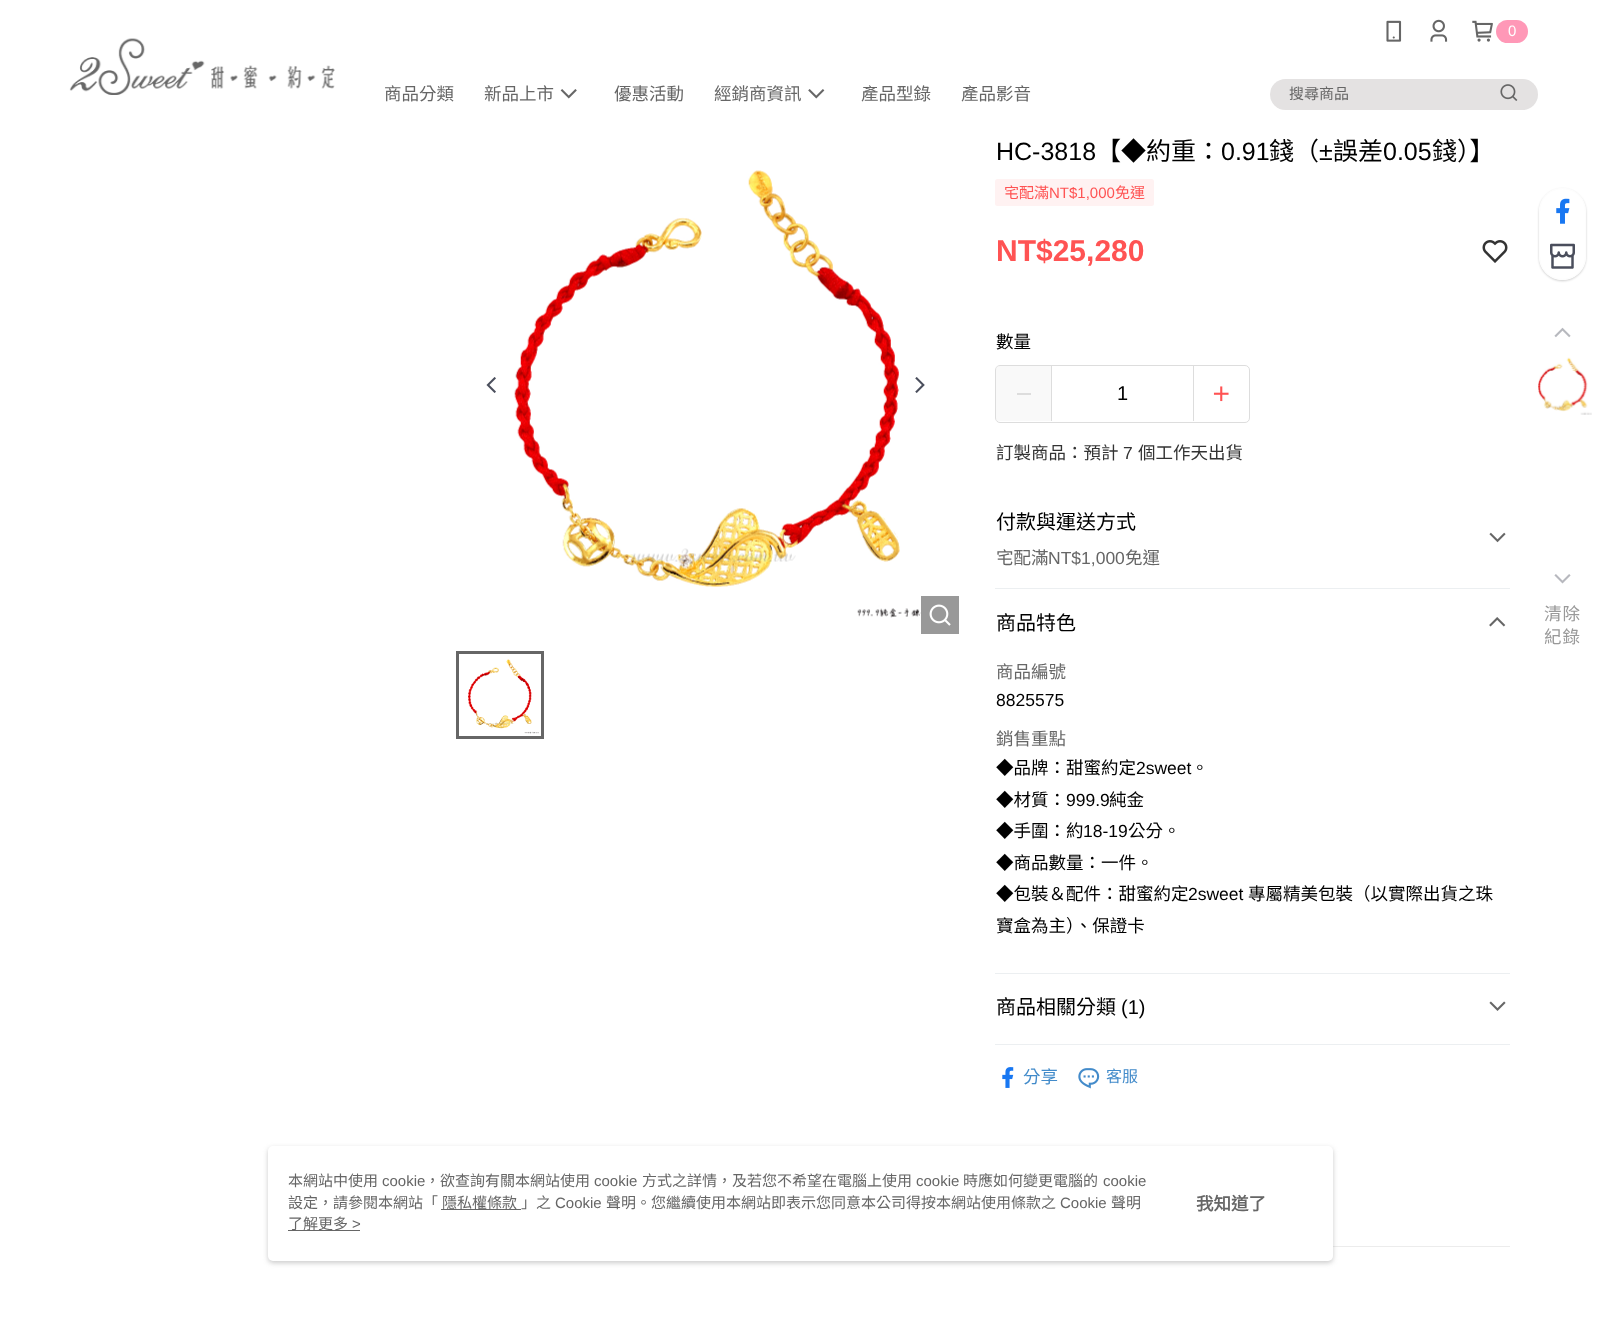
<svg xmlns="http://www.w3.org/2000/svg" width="1600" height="1318">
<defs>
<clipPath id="clip1"><path d="M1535 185h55v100h-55zm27.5 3c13 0 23.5 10.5 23.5 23.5v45c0 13-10.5 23.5-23.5 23.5c-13 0-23.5-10.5-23.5-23.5v-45c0-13 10.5-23.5 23.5-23.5z" clip-rule="evenodd"/></clipPath>
</defs>
<rect width="100%" height="100%" fill="#fff"/>
<image x="69" y="38" width="266" height="57" href="media/1.png"/>
<image x="1386" y="20" width="16" height="22" href="media/2.png"/>
<image x="1430" y="19" width="18" height="23" href="media/3.png"/>
<image x="1472" y="20" width="21" height="22" href="media/4.png"/>
<rect x="1496" y="20" width="32" height="23" rx="11.5" fill="#ff98b7"/>
<text x="1508" y="36" style="font-family:Liberation Sans;font-size:15px;fill:#fff">0</text>
<text x="384" y="100" style="font-family:Noto Sans CJK TC;font-size:17.5px;fill:#666">商品分類</text>
<text x="484" y="100" style="font-family:Noto Sans CJK TC;font-size:17.5px;fill:#666">新品上市</text>
<image x="560" y="89" width="17" height="10" href="media/5.png"/>
<text x="614" y="100" style="font-family:Noto Sans CJK TC;font-size:17.5px;fill:#666">優惠活動</text>
<text x="714" y="100" style="font-family:Noto Sans CJK TC;font-size:17.5px;fill:#666">經銷商資訊</text>
<image x="808" y="89" width="17" height="10" href="media/6.png"/>
<text x="861" y="100" style="font-family:Noto Sans CJK TC;font-size:17.5px;fill:#666">產品型錄</text>
<text x="961" y="100" style="font-family:Noto Sans CJK TC;font-size:17.5px;fill:#666">產品影音</text>
<rect x="1270" y="79" width="268" height="31" rx="15.5" fill="#e4e2e2"/>
<text x="1289" y="99" style="font-family:Noto Sans CJK TC;font-size:15px;fill:#666">搜尋商品</text>
<image x="1500" y="84" width="18" height="17" href="media/7.png"/>
<image x="486" y="377" width="10" height="16" href="media/8.png"/>
<image x="514" y="170" width="429" height="448" href="media/9.png"/>
<rect x="921" y="596" width="38" height="38" fill="#999"/>
<image x="929" y="604" width="22" height="22" href="media/10.png"/>
<image x="915" y="377" width="10" height="16" href="media/11.png"/>
<image x="468" y="659" width="71" height="75" href="media/12.png"/>
<rect x="457.5" y="652.5" width="85" height="85" fill="none" stroke="#666" stroke-width="3"/>
<text x="996" y="160" style="font-family:Liberation Sans;font-size:25px;fill:#000">HC-3818</text>
<text x="1096" y="160" style="font-family:Noto Sans CJK TC;font-size:25px;fill:#000">【◆約重：</text>
<text x="1221" y="160" style="font-family:Liberation Sans;font-size:25px;fill:#000">0.91</text>
<text x="1269" y="160" style="font-family:Noto Sans CJK TC;font-size:25px;fill:#000">錢（</text>
<text x="1319" y="160" style="font-family:Liberation Sans;font-size:25px;fill:#000">±</text>
<text x="1333" y="160" style="font-family:Noto Sans CJK TC;font-size:25px;fill:#000">誤差</text>
<text x="1383" y="160" style="font-family:Liberation Sans;font-size:25px;fill:#000">0.05</text>
<text x="1432" y="160" style="font-family:Noto Sans CJK TC;font-size:25px;fill:#000">錢）】</text>
<rect x="995" y="179" width="159" height="27" rx="2.5" fill="#fff2f2"/>
<text x="1004" y="198" style="font-family:Noto Sans CJK TC;font-size:15px;fill:#ff5353">宅配滿</text>
<text x="1049" y="198" style="font-family:Liberation Sans;font-size:15px;fill:#ff5353">NT$1,000</text>
<text x="1115" y="198" style="font-family:Noto Sans CJK TC;font-size:15px;fill:#ff5353">免運</text>
<text x="996" y="261" style="font-family:Liberation Sans;font-size:30px;font-weight:bold;fill:#ff5353">NT$25,280</text>
<image x="1482" y="240" width="26" height="23" href="media/13.png"/>
<text x="996" y="348" style="font-family:Noto Sans CJK TC;font-size:17.5px;fill:#000">數量</text>
<rect x="995.5" y="365.5" width="254" height="57" rx="4.5" fill="none" stroke="#ddd"/>
<rect x="996" y="366" width="55" height="55" fill="#f1f1f166"/>
<rect x="1017" y="393" width="14" height="2" fill="#ddd"/>
<rect x="1193" y="366" width="1" height="55" fill="#ddd"/>
<rect x="1051" y="366" width="1" height="55" fill="#ddd"/>
<text x="1117" y="400" style="font-family:Liberation Sans;font-size:20px;fill:#000">1</text>
<image x="1213" y="386" width="16" height="16" href="media/14.png"/>
<text x="996" y="459" style="font-family:Noto Sans CJK TC;font-size:17.5px;fill:#333">訂製商品：預計</text>
<text x="1123" y="459" style="font-family:Liberation Sans;font-size:17.5px;fill:#333">7</text>
<text x="1138" y="459" style="font-family:Noto Sans CJK TC;font-size:17.5px;fill:#333">個工作天出貨</text>
<rect x="995" y="588" width="515" height="1" fill="#eceff1"/>
<text x="996" y="529" style="font-family:Noto Sans CJK TC;font-size:20px;fill:#000">付款與運送方式</text>
<text x="996" y="564" style="font-family:Noto Sans CJK TC;font-size:17.5px;fill:#666">宅配滿</text>
<text x="1048" y="564" style="font-family:Liberation Sans;font-size:17.5px;fill:#666">NT$1,000</text>
<text x="1125" y="564" style="font-family:Noto Sans CJK TC;font-size:17.5px;fill:#666">免運</text>
<image x="1489" y="532" width="17" height="11" href="media/15.png"/>
<rect x="995" y="973" width="515" height="1" fill="#eceff1"/>
<text x="996" y="630" style="font-family:Noto Sans CJK TC;font-size:20px;fill:#000">商品特色</text>
<image x="1489" y="617" width="17" height="10" href="media/16.png"/>
<text x="996" y="678" style="font-family:Noto Sans CJK TC;font-size:17.5px;fill:#666">商品編號</text>
<text x="996" y="706" style="font-family:Liberation Sans;font-size:17.5px;fill:#000">8825575</text>
<text x="996" y="745" style="font-family:Noto Sans CJK TC;font-size:17.5px;fill:#666">銷售重點</text>
<text x="996" y="774" style="font-family:Noto Sans CJK TC;font-size:17.5px;fill:#000">◆品牌：甜蜜約定</text>
<text x="1136" y="774" style="font-family:Liberation Sans;font-size:17.5px;fill:#000">2sweet</text>
<text x="1191" y="774" style="font-family:Noto Sans CJK TC;font-size:17.5px;fill:#000">。</text>
<text x="996" y="806" style="font-family:Noto Sans CJK TC;font-size:17.5px;fill:#000">◆材質：</text>
<text x="1066" y="806" style="font-family:Liberation Sans;font-size:17.5px;fill:#000">999.9</text>
<text x="1109" y="806" style="font-family:Noto Sans CJK TC;font-size:17.5px;fill:#000">純金</text>
<text x="996" y="837" style="font-family:Noto Sans CJK TC;font-size:17.5px;fill:#000">◆手圍：約</text>
<text x="1083" y="837" style="font-family:Liberation Sans;font-size:17.5px;fill:#000">18-19</text>
<text x="1128" y="837" style="font-family:Noto Sans CJK TC;font-size:17.5px;fill:#000">公分。</text>
<text x="996" y="869" style="font-family:Noto Sans CJK TC;font-size:17.5px;fill:#000">◆商品數量：一件。</text>
<text x="996" y="900" style="font-family:Noto Sans CJK TC;font-size:17.5px;fill:#000">◆包裝＆配件：甜蜜約定</text>
<text x="1188" y="900" style="font-family:Liberation Sans;font-size:17.5px;fill:#000">2sweet</text>
<text x="1248" y="900" style="font-family:Noto Sans CJK TC;font-size:17.5px;fill:#000">專屬精美包裝（以實際出貨之珠</text>
<text x="996" y="932" style="font-family:Noto Sans CJK TC;font-size:17.5px;fill:#000">寶盒為主）、保證卡</text>
<rect x="995" y="1044" width="515" height="1" fill="#eceff1"/>
<text x="996" y="1014" style="font-family:Noto Sans CJK TC;font-size:20px;fill:#000">商品相關分類</text>
<text x="1121" y="1014" style="font-family:Liberation Sans;font-size:20px;fill:#000">(1)</text>
<image x="1489" y="1001" width="17" height="10" href="media/17.png"/>
<image x="1002" y="1067" width="12" height="21" href="media/18.png"/>
<text x="1023" y="1083" style="font-family:Noto Sans CJK TC;font-size:17.5px;fill:#428bca">分享</text>
<image x="1078" y="1068" width="22" height="21" href="media/19.png"/>
<text x="1106" y="1082" style="font-family:Noto Sans CJK TC;font-size:16px;fill:#428bca">客服</text>
<rect x="1333" y="1246" width="177" height="1" fill="#ececec"/>
<g clip-path="url(#clip1)">
<rect x="1539" y="189" width="47" height="92" rx="23.5" fill="#00000033" filter="blur(1px)"/>
</g>
<rect x="1539.5" y="188.5" width="46" height="91" rx="23" fill="#ffffffe6" stroke="#fdfdfd"/>
<image x="1556" y="198" width="14" height="26" href="media/20.png"/>
<image x="1550" y="243" width="25" height="26" href="media/21.png"/>
<image x="1554" y="327" width="17" height="11" href="media/22.png"/>
<image x="1538" y="357" width="54" height="58" href="media/23.png"/>
<image x="1554" y="574" width="17" height="10" href="media/24.png"/>
<text x="1544" y="620" style="font-family:Noto Sans CJK TC;font-size:17.5px;letter-spacing:1px;fill:#999">清除</text>
<text x="1544" y="643" style="font-family:Noto Sans CJK TC;font-size:17.5px;letter-spacing:1px;fill:#999">紀錄</text>
<rect x="268" y="1148" width="1065" height="115" rx="5" fill="#97979780" filter="blur(2.5px)"/>
<rect x="268" y="1146" width="1065" height="115" rx="5" fill="#fff"/>
<text x="288" y="1186" style="font-family:Noto Sans CJK TC;font-size:15px;fill:#666">本網站中使用</text>
<text x="382" y="1186" style="font-family:Liberation Sans;font-size:15px;fill:#666">cookie</text>
<text x="425" y="1186" style="font-family:Noto Sans CJK TC;font-size:15px;fill:#666">，欲查詢有關本網站使用</text>
<text x="594" y="1186" style="font-family:Liberation Sans;font-size:15px;fill:#666">cookie</text>
<text x="642" y="1186" style="font-family:Noto Sans CJK TC;font-size:15px;fill:#666">方式之詳情，及若您不希望在電腦上使用</text>
<text x="916" y="1186" style="font-family:Liberation Sans;font-size:15px;fill:#666">cookie</text>
<text x="963" y="1186" style="font-family:Noto Sans CJK TC;font-size:15px;fill:#666">時應如何變更電腦的</text>
<text x="1103" y="1186" style="font-family:Liberation Sans;font-size:15px;fill:#666">cookie</text>
<text x="288" y="1208" style="font-family:Noto Sans CJK TC;font-size:15px;fill:#666">設定，請參閱本網站「</text>
<rect x="441" y="1209" width="75" height="1" fill="#666"/>
<text x="442" y="1208" style="font-family:Noto Sans CJK TC;font-size:15px;fill:#666">隱私權條款</text>
<rect x="516" y="1209" width="5" height="1" fill="#666"/>
<text x="521" y="1208" style="font-family:Noto Sans CJK TC;font-size:15px;fill:#666">」之</text>
<text x="555" y="1208" style="font-family:Liberation Sans;font-size:15px;fill:#666">Cookie</text>
<text x="606" y="1208" style="font-family:Noto Sans CJK TC;font-size:15px;fill:#666">聲明。您繼續使用本網站即表示您同意本公司得按本網站使用條款之</text>
<text x="1060" y="1208" style="font-family:Liberation Sans;font-size:15px;fill:#666">Cookie</text>
<text x="1111" y="1208" style="font-family:Noto Sans CJK TC;font-size:15px;fill:#666">聲明</text>
<rect x="288" y="1230" width="72" height="1" fill="#666"/>
<text x="288" y="1229" style="font-family:Noto Sans CJK TC;font-size:15px;fill:#666">了解更多</text>
<text x="352" y="1229" style="font-family:Liberation Sans;font-size:15px;fill:#666">&gt;</text>
<text x="1196" y="1210" style="font-family:Noto Sans CJK TC;font-size:17.5px;font-weight:bold;fill:#666">我知道了</text>
</svg>
